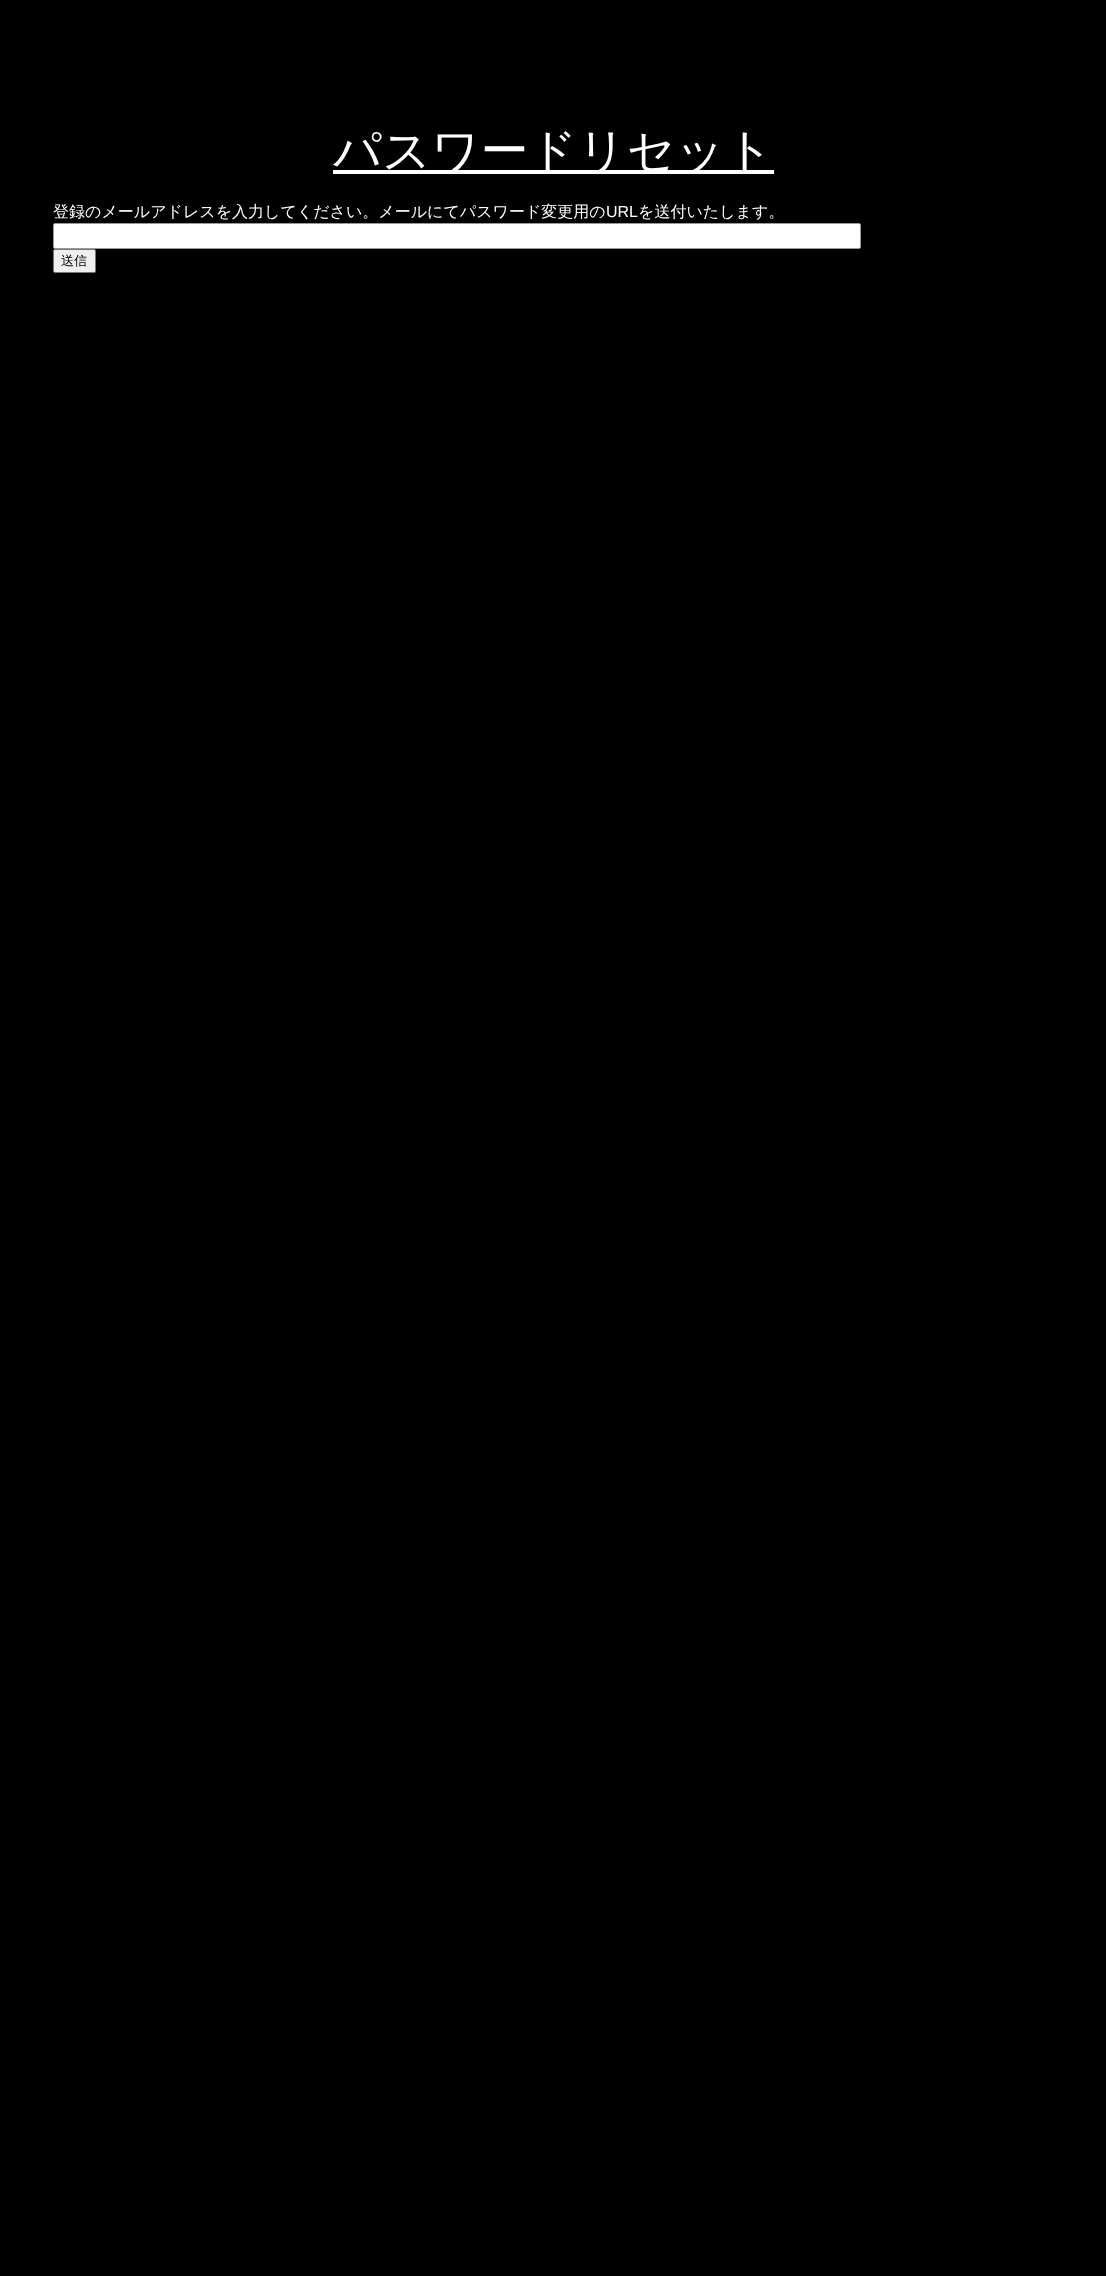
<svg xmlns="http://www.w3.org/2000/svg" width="1106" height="2276">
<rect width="100%" height="100%" fill="#000"/>
<rect x="333" y="170" width="441" height="4" fill="#fff"/>
<text x="333" y="167" style="font-family:WenQuanYi Zen Hei;font-size:48px;font-weight:500;fill:#fff">パスワードリセット</text>
<text x="53" y="217" style="font-family:WenQuanYi Zen Hei;font-size:16px;font-weight:500;fill:#fff">登録のメールアドレスを入力してください。メールにてパスワード変更用の</text>
<text x="606" y="217" style="font-family:Liberation Sans;font-size:16px;fill:#fff">URL</text>
<text x="638" y="217" style="font-family:WenQuanYi Zen Hei;font-size:16px;font-weight:500;fill:#fff">を送付いたします。</text>
<rect x="53.5" y="223.5" width="807" height="25" rx="1.5" fill="#fff" stroke="#999"/>
<rect x="53.5" y="249.5" width="42" height="23" rx="1.5" fill="#efefef" stroke="#767676"/>
<text x="61" y="265" style="font-family:WenQuanYi Zen Hei;font-size:13px;font-weight:500;fill:#000">送信</text>
</svg>
